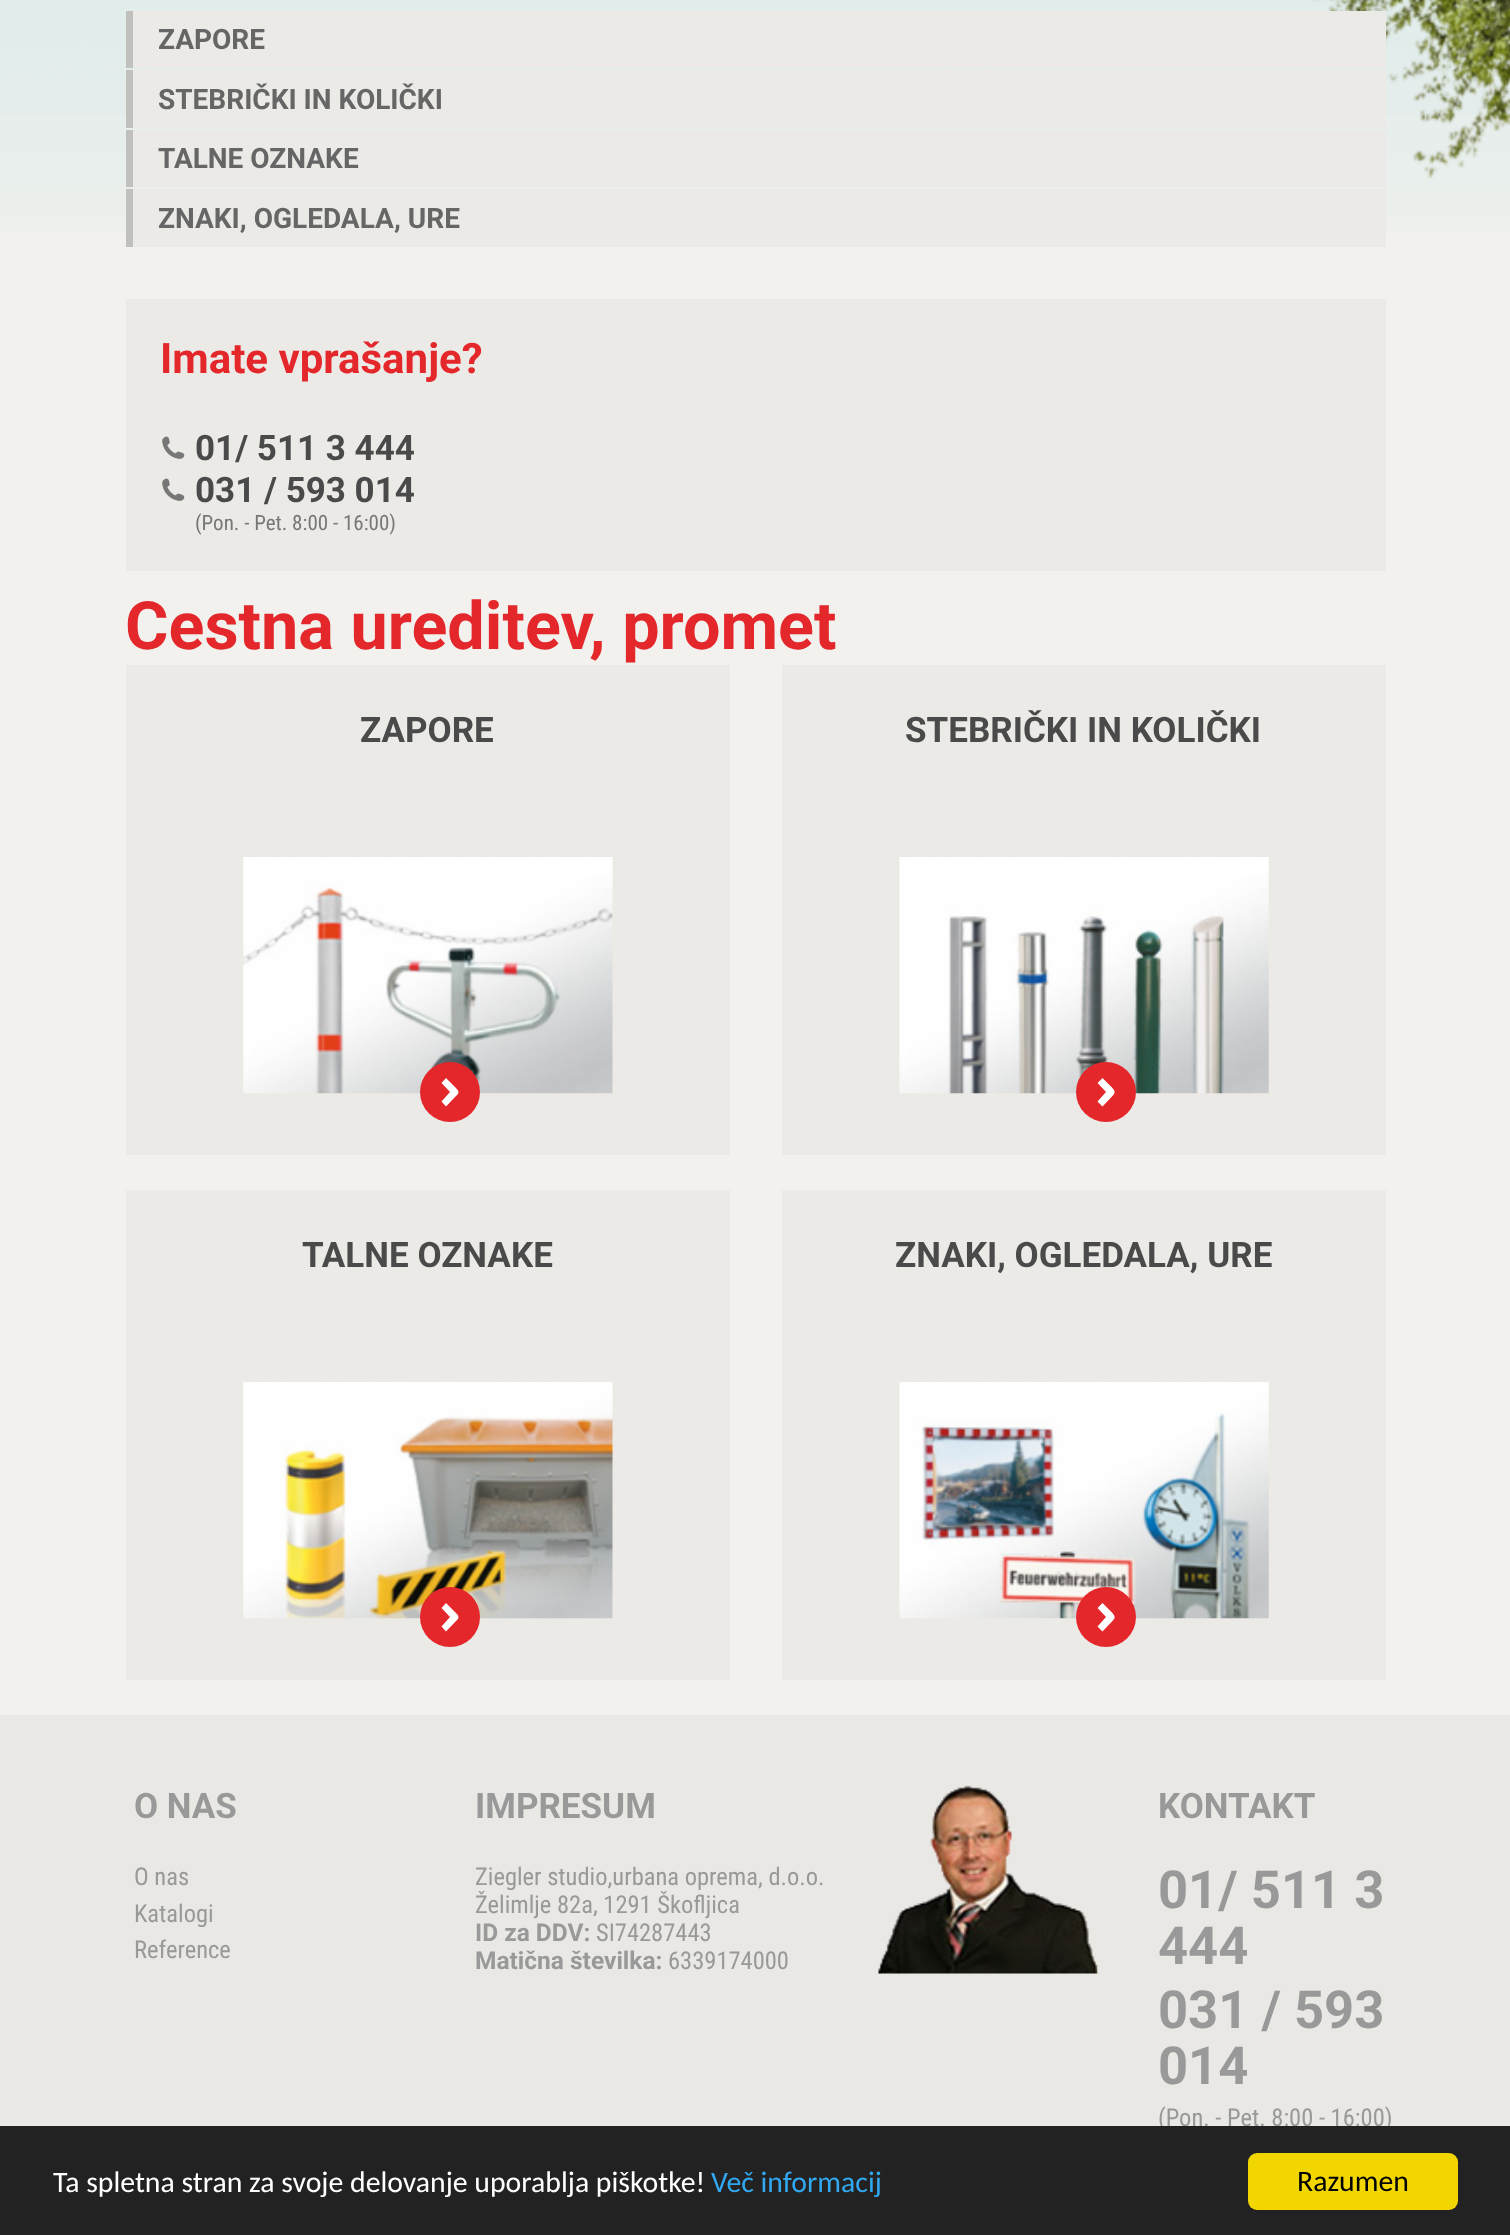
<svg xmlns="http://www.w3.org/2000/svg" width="1510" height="2235">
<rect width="100%" height="100%" fill="#f2f1ed"/>
<image x="0" y="0" width="1510" height="232" href="media/1.png"/>
<image x="1311" y="0" width="199" height="179" href="media/7.png"/>
<rect x="133" y="11" width="1253" height="57" fill="#ebeae6"/>
<rect x="126" y="11" width="7" height="57" fill="#c0c0bc"/>
<text x="158" y="49" style="font-family:Roboto;font-size:28px;font-weight:bold;fill:#666">ZAPORE</text>
<rect x="133" y="70" width="1253" height="58" fill="#ebeae6"/>
<rect x="126" y="70" width="7" height="58" fill="#c0c0bc"/>
<text x="158" y="109" style="font-family:Roboto;font-size:28px;font-weight:bold;fill:#666">STEBRIČKI IN KOLIČKI</text>
<rect x="133" y="130" width="1253" height="57" fill="#ebeae6"/>
<rect x="126" y="130" width="7" height="57" fill="#c0c0bc"/>
<text x="158" y="168" style="font-family:Roboto;font-size:28px;font-weight:bold;fill:#666">TALNE OZNAKE</text>
<rect x="133" y="189" width="1253" height="58" fill="#ebeae6"/>
<rect x="126" y="189" width="7" height="58" fill="#c0c0bc"/>
<text x="158" y="228" style="font-family:Roboto;font-size:28px;font-weight:bold;fill:#666">ZNAKI, OGLEDALA, URE</text>
<rect x="126" y="299" width="1260" height="272" fill="#ebeae6"/>
<text x="160" y="373" style="font-family:Roboto;font-size:42px;font-weight:bold;fill:#e4272b">Imate vprašanje?</text>
<image x="162" y="436" width="23" height="23" href="media/2.png"/>
<text x="195" y="460" style="font-family:Roboto;font-size:35px;font-weight:bold;fill:#4a4a4a">01/ 511 3 444</text>
<image x="162" y="478" width="23" height="23" href="media/2.png"/>
<text x="195" y="502" style="font-family:Roboto;font-size:35px;font-weight:bold;fill:#4a4a4a">031 / 593 014</text>
<text x="195" y="530" style="font-family:Roboto Condensed;font-size:21px;fill:#777">(Pon. - Pet. 8:00 - 16:00)</text>
<text x="125" y="649" style="font-family:Roboto;font-size:66.5px;font-weight:bold;fill:#e4272b">Cestna ureditev, promet</text>
<rect x="126" y="665" width="604" height="490" fill="#ebeae6"/>
<text x="360" y="742" style="font-family:Roboto;font-size:35px;font-weight:bold;fill:#4a4a4a">ZAPORE</text>
<image x="243" y="857" width="370" height="237" href="media/3.png"/>
<circle cx="450" cy="1092" r="30" fill="#e4272b"/>
<path d="M446 1106.5l-4.5-5l8.5-9.5l-8.5-9l4.5-5l9.5 9.5c4 4 4 5.5 0 9z" fill="#fff"/>
<rect x="782" y="665" width="604" height="490" fill="#ebeae6"/>
<text x="905" y="742" style="font-family:Roboto;font-size:35px;font-weight:bold;fill:#4a4a4a">STEBRIČKI IN KOLIČKI</text>
<image x="899" y="857" width="370" height="237" href="media/4.png"/>
<circle cx="1106" cy="1092" r="30" fill="#e4272b"/>
<path d="M1102.5 1106.5l-5-5l8.5-9.5l-8.5-9l5-5l9.5 9.5c3.5 4 3.5 5.5 0 9z" fill="#fff"/>
<rect x="126" y="1190" width="604" height="490" fill="#ebeae6"/>
<text x="302" y="1267" style="font-family:Roboto;font-size:35px;font-weight:bold;fill:#4a4a4a">TALNE OZNAKE</text>
<image x="243" y="1382" width="370" height="237" href="media/5.png"/>
<circle cx="450" cy="1617" r="30" fill="#e4272b"/>
<path d="M446 1631.5l-4.5-5l8.5-9.5l-8.5-9l4.5-5l9.5 9.5c4 4 4 5.5 0 9z" fill="#fff"/>
<rect x="782" y="1190" width="604" height="490" fill="#ebeae6"/>
<text x="895" y="1267" style="font-family:Roboto;font-size:35px;font-weight:bold;fill:#4a4a4a">ZNAKI, OGLEDALA, URE</text>
<image x="899" y="1382" width="370" height="237" href="media/6.png"/>
<circle cx="1106" cy="1617" r="30" fill="#e4272b"/>
<path d="M1102.5 1631.5l-5-5l8.5-9.5l-8.5-9l5-5l9.5 9.5c3.5 4 3.5 5.5 0 9z" fill="#fff"/>
<rect y="1715" width="1510" height="411" fill="#e9e8e4"/>
<text x="134" y="1818" style="font-family:Roboto;font-size:35px;font-weight:bold;fill:#999">O NAS</text>
<text x="134" y="1885" style="font-family:Roboto Condensed;font-size:24.5px;fill:#999">O nas</text>
<text x="134" y="1922" style="font-family:Roboto Condensed;font-size:24.5px;fill:#999">Katalogi</text>
<text x="134" y="1958" style="font-family:Roboto Condensed;font-size:24.5px;fill:#999">Reference</text>
<image x="878" y="1785" width="220" height="189" href="media/8.png"/>
<text x="475" y="1818" style="font-family:Roboto;font-size:35px;font-weight:bold;fill:#999">IMPRESUM</text>
<text x="475" y="1885" style="font-family:Roboto Condensed;font-size:24.5px;fill:#999">Ziegler studio,urbana oprema, d.o.o.</text>
<text x="475" y="1913" style="font-family:Roboto Condensed;font-size:24.5px;fill:#999">Želimlje 82a, 1291 Škofljica</text>
<text x="475" y="1941" style="font-family:Roboto;font-size:24.5px;font-weight:bold;fill:#999">ID za DDV:</text>
<text x="596" y="1941" style="font-family:Roboto Condensed;font-size:24.5px;fill:#999">SI74287443</text>
<text x="475" y="1969" style="font-family:Roboto;font-size:24.5px;font-weight:bold;fill:#999">Matična številka:</text>
<text x="668" y="1969" style="font-family:Roboto Condensed;font-size:24.5px;fill:#999">6339174000</text>
<text x="1158" y="1818" style="font-family:Roboto;font-size:35px;font-weight:bold;fill:#999">KONTAKT</text>
<text x="1158" y="1908" style="font-family:Roboto;font-size:52.5px;font-weight:bold;fill:#999">01/ 511 3</text>
<text x="1158" y="1964" style="font-family:Roboto;font-size:52.5px;font-weight:bold;fill:#999">444</text>
<text x="1158" y="2028" style="font-family:Roboto;font-size:52.5px;font-weight:bold;fill:#999">031 / 593</text>
<text x="1158" y="2084" style="font-family:Roboto;font-size:52.5px;font-weight:bold;fill:#999">014</text>
<text x="1158" y="2126" style="font-family:Roboto Condensed;font-size:24.5px;fill:#999">(Pon. - Pet. 8:00 - 16:00)</text>
<rect y="2126" width="1510" height="109" fill="#222"/>
<text x="53" y="2192" style="font-family:Carlito;font-size:29.75px;fill:#fff">Ta spletna stran za svoje delovanje uporablja piškotke!</text>
<text x="711" y="2192" style="font-family:Carlito;font-size:29.75px;fill:#31a8f0">Več informacij</text>
<rect x="1248" y="2153" width="210" height="57" rx="9" fill="#f1d600"/>
<text x="1297" y="2191" style="font-family:Carlito;font-size:29.75px;fill:#000">Razumen</text>
</svg>
